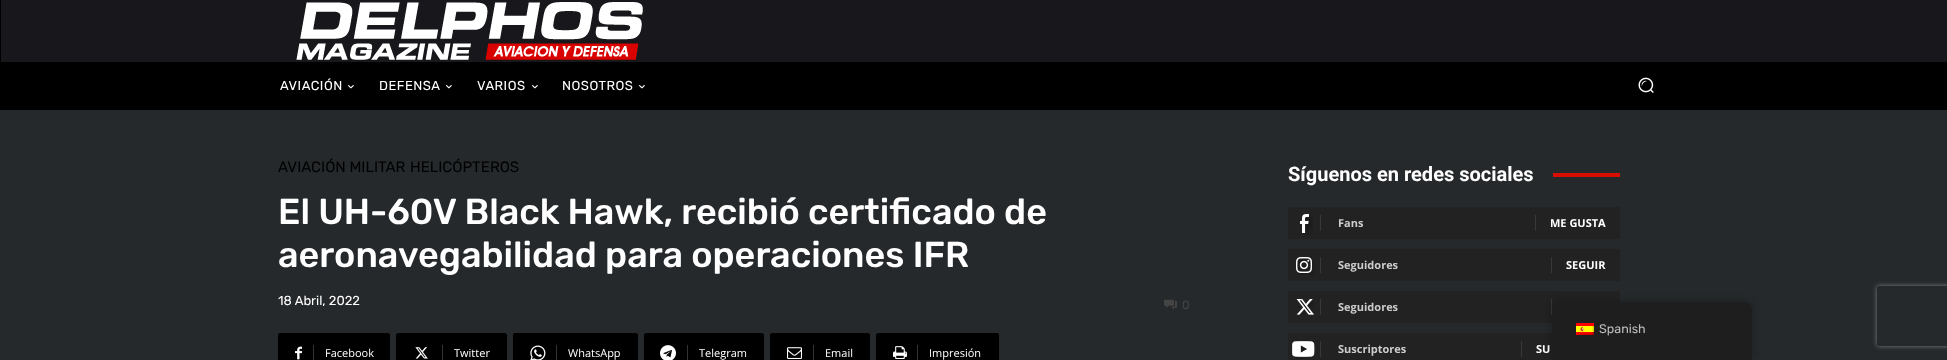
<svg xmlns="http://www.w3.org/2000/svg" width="1947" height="360">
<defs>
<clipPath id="clip1"><path d="M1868 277h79v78h-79zm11 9h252c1 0 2 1 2 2v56c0 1-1 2-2 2h-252c-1 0-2-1-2-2v-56c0-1 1-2 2-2z" clip-rule="evenodd"/></clipPath>
</defs>
<rect width="100%" height="100%" fill="#25292b"/>
<rect width="1947" height="110" fill="#000"/>
<rect x="1" width="1946" height="62" fill="#18181c"/>
<image x="296" y="2" width="347" height="58" href="media/1.png"/>
<text x="280" y="90" style="font-family:Rubik;font-size:13px;letter-spacing:0.5px;fill:#fff">AVIACIÓN</text>
<image x="348" y="85" width="6" height="4" href="media/2.png"/>
<text x="379" y="90" style="font-family:Rubik;font-size:13px;letter-spacing:0.5px;fill:#fff">DEFENSA</text>
<image x="446" y="85" width="6" height="4" href="media/2.png"/>
<text x="477" y="90" style="font-family:Rubik;font-size:13px;letter-spacing:0.5px;fill:#fff">VARIOS</text>
<image x="532" y="85" width="6" height="4" href="media/2.png"/>
<text x="562" y="90" style="font-family:Rubik;font-size:13px;letter-spacing:0.5px;fill:#fff">NOSOTROS</text>
<image x="639" y="85" width="6" height="4" href="media/2.png"/>
<image x="1638" y="77" width="16" height="16" href="media/3.png"/>
<text x="278" y="172" style="font-family:Rubik;font-size:15px;fill:#000">AVIACIÓN MILITAR</text>
<text x="410" y="172" style="font-family:Rubik;font-size:15px;fill:#000">HELICÓPTEROS</text>
<text x="278" y="224" style="font-family:Rubik;font-size:36px;font-weight:500;fill:#fff">El UH-60V Black Hawk, recibió certificado de</text>
<text x="278" y="267" style="font-family:Rubik;font-size:36px;font-weight:500;fill:#fff">aeronavegabilidad para operaciones IFR</text>
<text x="278" y="305" style="font-family:Rubik;font-size:13px;fill:#fff">18 Abril, 2022</text>
<image x="1164" y="299" width="13" height="11" href="media/4.png"/>
<text x="1182" y="309" style="font-family:Rubik;font-size:12px;fill:#444">0</text>
<path d="M313 333h75c1 0 2 1 2 2v25c0 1-1 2-2 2h-75z" fill="#000"/>
<path d="M280 333h39v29h-39c-1 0-2-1-2-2v-25c0-1 1-2 2-2z" fill="#000"/>
<image x="295" y="346" width="7" height="14" href="media/5.png"/>
<rect x="313" y="345" width="1" height="15" fill="#333"/>
<text x="325" y="357" style="font-family:Open Sans;font-size:11px;fill:#fff">Facebook</text>
<path d="M442 333h63c1 0 2 1 2 2v25c0 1-1 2-2 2h-63z" fill="#000"/>
<path d="M398 333h50v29h-50c-1 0-2-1-2-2v-25c0-1 1-2 2-2z" fill="#000"/>
<image x="415" y="347" width="13" height="12" href="media/6.png"/>
<rect x="442" y="345" width="1" height="15" fill="#333"/>
<text x="454" y="357" style="font-family:Open Sans;font-size:11px;fill:#fff">Twitter</text>
<path d="M556 333h80c1 0 2 1 2 2v25c0 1-1 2-2 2h-80z" fill="#000"/>
<path d="M515 333h47v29h-47c-1 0-2-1-2-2v-25c0-1 1-2 2-2z" fill="#000"/>
<image x="530" y="345" width="16" height="15" href="media/7.png"/>
<rect x="556" y="345" width="1" height="15" fill="#333"/>
<text x="568" y="357" style="font-family:Open Sans;font-size:11px;fill:#fff">WhatsApp</text>
<path d="M687 333h75c1 0 2 1 2 2v25c0 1-1 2-2 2h-75z" fill="#000"/>
<path d="M646 333h47v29h-47c-1 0-2-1-2-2v-25c0-1 1-2 2-2z" fill="#000"/>
<image x="660" y="345" width="16" height="15" href="media/8.png"/>
<rect x="687" y="345" width="1" height="15" fill="#333"/>
<text x="699" y="357" style="font-family:Open Sans;font-size:11px;fill:#fff">Telegram</text>
<path d="M813 333h55c1 0 2 1 2 2v25c0 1-1 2-2 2h-55z" fill="#000"/>
<path d="M772 333h47v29h-47c-1 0-2-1-2-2v-25c0-1 1-2 2-2z" fill="#000"/>
<image x="787" y="347" width="15" height="12" href="media/9.png"/>
<rect x="813" y="345" width="1" height="15" fill="#333"/>
<text x="825" y="357" style="font-family:Open Sans;font-size:11px;fill:#fff">Email</text>
<path d="M917 333h80c1 0 2 1 2 2v25c0 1-1 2-2 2h-80z" fill="#000"/>
<path d="M878 333h45v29h-45c-1 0-2-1-2-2v-25c0-1 1-2 2-2z" fill="#000"/>
<image x="893" y="346" width="14" height="13" href="media/10.png"/>
<rect x="917" y="345" width="1" height="15" fill="#333"/>
<text x="929" y="357" style="font-family:Open Sans;font-size:11px;fill:#fff">Impresión</text>
<text x="1288" y="181" style="font-family:Roboto;font-size:20px;font-weight:bold;fill:#fff">Síguenos en redes sociales</text>
<rect x="1553" y="173" width="67" height="4" fill="#d90d01"/>
<rect x="1288" y="207" width="332" height="32" fill="#222"/>
<image x="1300" y="214" width="13" height="21" href="media/11.png"/>
<rect x="1320" y="215" width="1" height="16" fill="#383838"/>
<text x="1338" y="227" style="font-family:Open Sans;font-size:11px;font-weight:bold;fill:#ccc">Fans</text>
<rect x="1535" y="215" width="1" height="16" fill="#383838"/>
<text x="1550" y="227" style="font-family:Open Sans;font-size:11px;font-weight:bold;fill:#fff">ME GUSTA</text>
<rect x="1288" y="249" width="332" height="32" fill="#222"/>
<image x="1296" y="257" width="18" height="18" href="media/12.png"/>
<rect x="1320" y="257" width="1" height="16" fill="#383838"/>
<text x="1338" y="269" style="font-family:Open Sans;font-size:11px;font-weight:bold;fill:#ccc">Seguidores</text>
<rect x="1551" y="257" width="1" height="16" fill="#383838"/>
<text x="1566" y="269" style="font-family:Open Sans;font-size:11px;font-weight:bold;fill:#fff">SEGUIR</text>
<rect x="1288" y="291" width="332" height="32" fill="#222"/>
<image x="1296" y="299" width="18" height="16" href="media/13.png"/>
<rect x="1320" y="299" width="1" height="16" fill="#383838"/>
<text x="1338" y="311" style="font-family:Open Sans;font-size:11px;font-weight:bold;fill:#ccc">Seguidores</text>
<rect x="1551" y="299" width="1" height="16" fill="#383838"/>
<rect x="1288" y="333" width="264" height="27" fill="#222"/>
<image x="1292" y="341" width="23" height="18" href="media/14.png"/>
<rect x="1320" y="341" width="1" height="16" fill="#383838"/>
<text x="1338" y="353" style="font-family:Open Sans;font-size:11px;font-weight:bold;fill:#ccc">Suscriptores</text>
<rect x="1521" y="341" width="1" height="16" fill="#383838"/>
<text x="1536" y="353" style="font-family:Open Sans;font-size:11px;font-weight:bold;fill:#fff">SU</text>
<rect x="1552" y="302" width="200" height="58" rx="8" fill="#00000040" filter="blur(4px)"/>
<path d="M1560 302h184c4.5 0 8 3.5 8 8v50h-200v-50c0-4.5 3.5-8 8-8z" fill="#1e1e1e"/>
<image x="1576" y="323" width="18" height="12" href="media/15.png"/>
<text x="1599" y="333" style="font-family:Rubik;font-size:12.5px;fill:#bdbdbd">Spanish</text>
<g clip-path="url(#clip1)">
<rect x="1877" y="286" width="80" height="60" rx="2" fill="#808080" filter="blur(2.5px)"/>
</g>
</svg>
